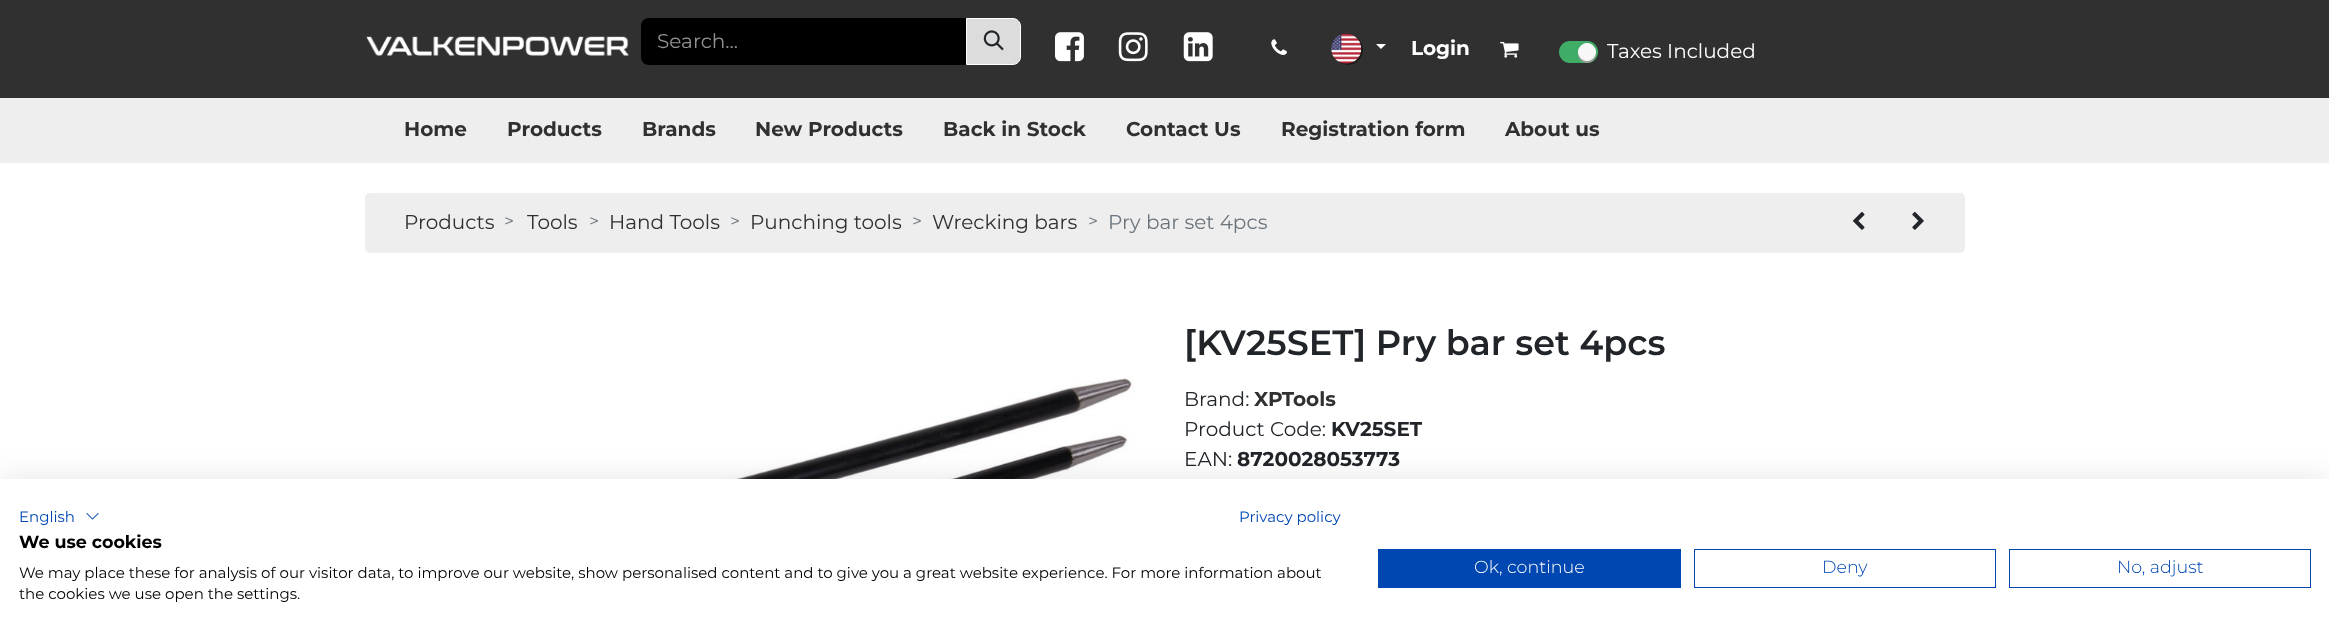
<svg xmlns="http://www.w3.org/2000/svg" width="2329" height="638">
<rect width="100%" height="100%" fill="#fff"/>
<rect width="2329" height="98" fill="#303030"/>
<image x="366" y="36" width="263" height="20" href="media/1.png"/>
<path d="M649 18h319v47h-319c-4.5 0-8-3.5-8-8v-31c0-4.5 3.5-8 8-8z" fill="#000"/>
<text x="657" y="48" style="font-family:Montserrat;font-size:20px;fill:#909294">Search...</text>
<path d="M966.5 18.5h46.5c4 0 7.5 3.5 7.5 7.5v31c0 4-3.5 7.5-7.5 7.5h-46.5z" fill="#dcdcdc" stroke="#fff"/>
<image x="983" y="30" width="21" height="21" href="media/2.png"/>
<image x="1055" y="32" width="29" height="30" href="media/3.png"/>
<image x="1118" y="32" width="30" height="30" href="media/4.png"/>
<image x="1183" y="32" width="30" height="30" href="media/5.png"/>
<image x="1271" y="39" width="16" height="16" href="media/6.png"/>
<rect x="1333" y="35" width="30" height="30" rx="15" fill="#0000006e" filter="blur(0.5px)"/>
<image x="1331" y="33" width="31" height="31" href="media/7.png"/>
<path d="M1376 44h10l-5 5z" fill="#fff"/>
<text x="1411" y="55" style="font-family:Montserrat;font-size:20px;font-weight:bold;fill:#fff">Login</text>
<image x="1500" y="41" width="19" height="17" href="media/8.png"/>
<rect x="1559" y="41" width="39" height="22" rx="11" fill="#40ad67"/>
<rect x="1578" y="44" width="18" height="19" rx="9" fill="#9e9e9e" filter="blur(0.5px)"/>
<circle cx="1587" cy="52" r="8.5" fill="#f7f7f7" stroke="#fff"/>
<text x="1607" y="58" style="font-family:Montserrat;font-size:20px;fill:#fff">Taxes Included</text>
<rect y="98" width="2329" height="65" fill="#eee"/>
<text x="404" y="136" style="font-family:Montserrat;font-size:20px;font-weight:bold;fill:#303030">Home</text>
<text x="507" y="136" style="font-family:Montserrat;font-size:20px;font-weight:bold;fill:#303030">Products</text>
<text x="642" y="136" style="font-family:Montserrat;font-size:20px;font-weight:bold;fill:#303030">Brands</text>
<text x="755" y="136" style="font-family:Montserrat;font-size:20px;font-weight:bold;fill:#303030">New Products</text>
<text x="943" y="136" style="font-family:Montserrat;font-size:20px;font-weight:bold;fill:#303030">Back in Stock</text>
<text x="1126" y="136" style="font-family:Montserrat;font-size:20px;font-weight:bold;fill:#303030">Contact Us</text>
<text x="1281" y="136" style="font-family:Montserrat;font-size:20px;font-weight:bold;fill:#303030">Registration form</text>
<text x="1505" y="136" style="font-family:Montserrat;font-size:20px;font-weight:bold;fill:#303030">About us</text>
<rect x="365" y="193" width="1600" height="60" rx="5" fill="#eee"/>
<text x="404" y="229" style="font-family:Montserrat;font-size:20px;fill:#303030">Products</text>
<text x="504" y="227" style="font-family:Montserrat;font-size:17.5px;fill:#6c757d">&gt;</text>
<text x="527" y="229" style="font-family:Montserrat;font-size:20px;fill:#303030">Tools</text>
<text x="589" y="227" style="font-family:Montserrat;font-size:17.5px;fill:#6c757d">&gt;</text>
<text x="609" y="229" style="font-family:Montserrat;font-size:20px;fill:#303030">Hand Tools</text>
<text x="730" y="227" style="font-family:Montserrat;font-size:17.5px;fill:#6c757d">&gt;</text>
<text x="750" y="229" style="font-family:Montserrat;font-size:20px;fill:#303030">Punching tools</text>
<text x="912" y="227" style="font-family:Montserrat;font-size:17.5px;fill:#6c757d">&gt;</text>
<text x="932" y="229" style="font-family:Montserrat;font-size:20px;fill:#303030">Wrecking bars</text>
<text x="1088" y="227" style="font-family:Montserrat;font-size:17.5px;fill:#6c757d">&gt;</text>
<text x="1108" y="229" style="font-family:Montserrat;font-size:20px;fill:#6c757d">Pry bar set 4pcs</text>
<image x="1853" y="212" width="12" height="18" href="media/9.png"/>
<image x="1912" y="211" width="12" height="19" href="media/10.png"/>
<image x="399" y="378" width="735" height="101" href="media/11.png"/>
<text x="1184" y="355" style="font-family:Montserrat;font-size:35px;font-weight:600;fill:#212529">[KV25SET] Pry bar set 4pcs</text>
<text x="1184" y="406" style="font-family:Montserrat;font-size:20px;fill:#212529">Brand:</text>
<text x="1254" y="406" style="font-family:Montserrat;font-size:20px;font-weight:bold;fill:#303030">XPTools</text>
<text x="1184" y="436" style="font-family:Montserrat;font-size:20px;fill:#212529">Product Code:</text>
<text x="1331" y="436" style="font-family:Montserrat;font-size:20px;font-weight:bold;fill:#212529">KV25SET</text>
<text x="1184" y="466" style="font-family:Montserrat;font-size:20px;fill:#212529">EAN:</text>
<text x="1237" y="466" style="font-family:Montserrat;font-size:20px;font-weight:bold;fill:#212529">8720028053773</text>
<rect y="479" width="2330" height="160" fill="#0000001a" filter="blur(15px)"/>
<rect y="479" width="2329" height="159" fill="#fff"/>
<text x="19" y="522" style="font-family:Montserrat;font-size:15px;fill:#0047b2">English</text>
<image x="86" y="513" width="13" height="7" href="media/12.png"/>
<text x="1239" y="522" style="font-family:Montserrat;font-size:15px;fill:#0047b2">Privacy policy</text>
<text x="19" y="548" style="font-family:Montserrat;font-size:17.5px;font-weight:bold;fill:#000">We use cookies</text>
<text x="19" y="578" style="font-family:Montserrat;font-size:15px;fill:#000">We may place these for analysis of our visitor data, to improve our website, show personalised content and to give you a great website experience. For more information about</text>
<text x="19" y="599" style="font-family:Montserrat;font-size:15px;fill:#000">the cookies we use open the settings.</text>
<rect x="1378" y="549" width="303" height="39" fill="#0047b2"/>
<text x="1474" y="573" style="font-family:Montserrat;font-size:17.5px;font-weight:300;fill:#fff">Ok, continue</text>
<rect x="1694.5" y="549.5" width="301" height="38" fill="none" stroke="#0047b2"/>
<text x="1822" y="573" style="font-family:Montserrat;font-size:17.5px;font-weight:300;fill:#0047b2">Deny</text>
<rect x="2009.5" y="549.5" width="301" height="38" fill="none" stroke="#0047b2"/>
<text x="2117" y="573" style="font-family:Montserrat;font-size:17.5px;font-weight:300;fill:#0047b2">No, adjust</text>
</svg>
